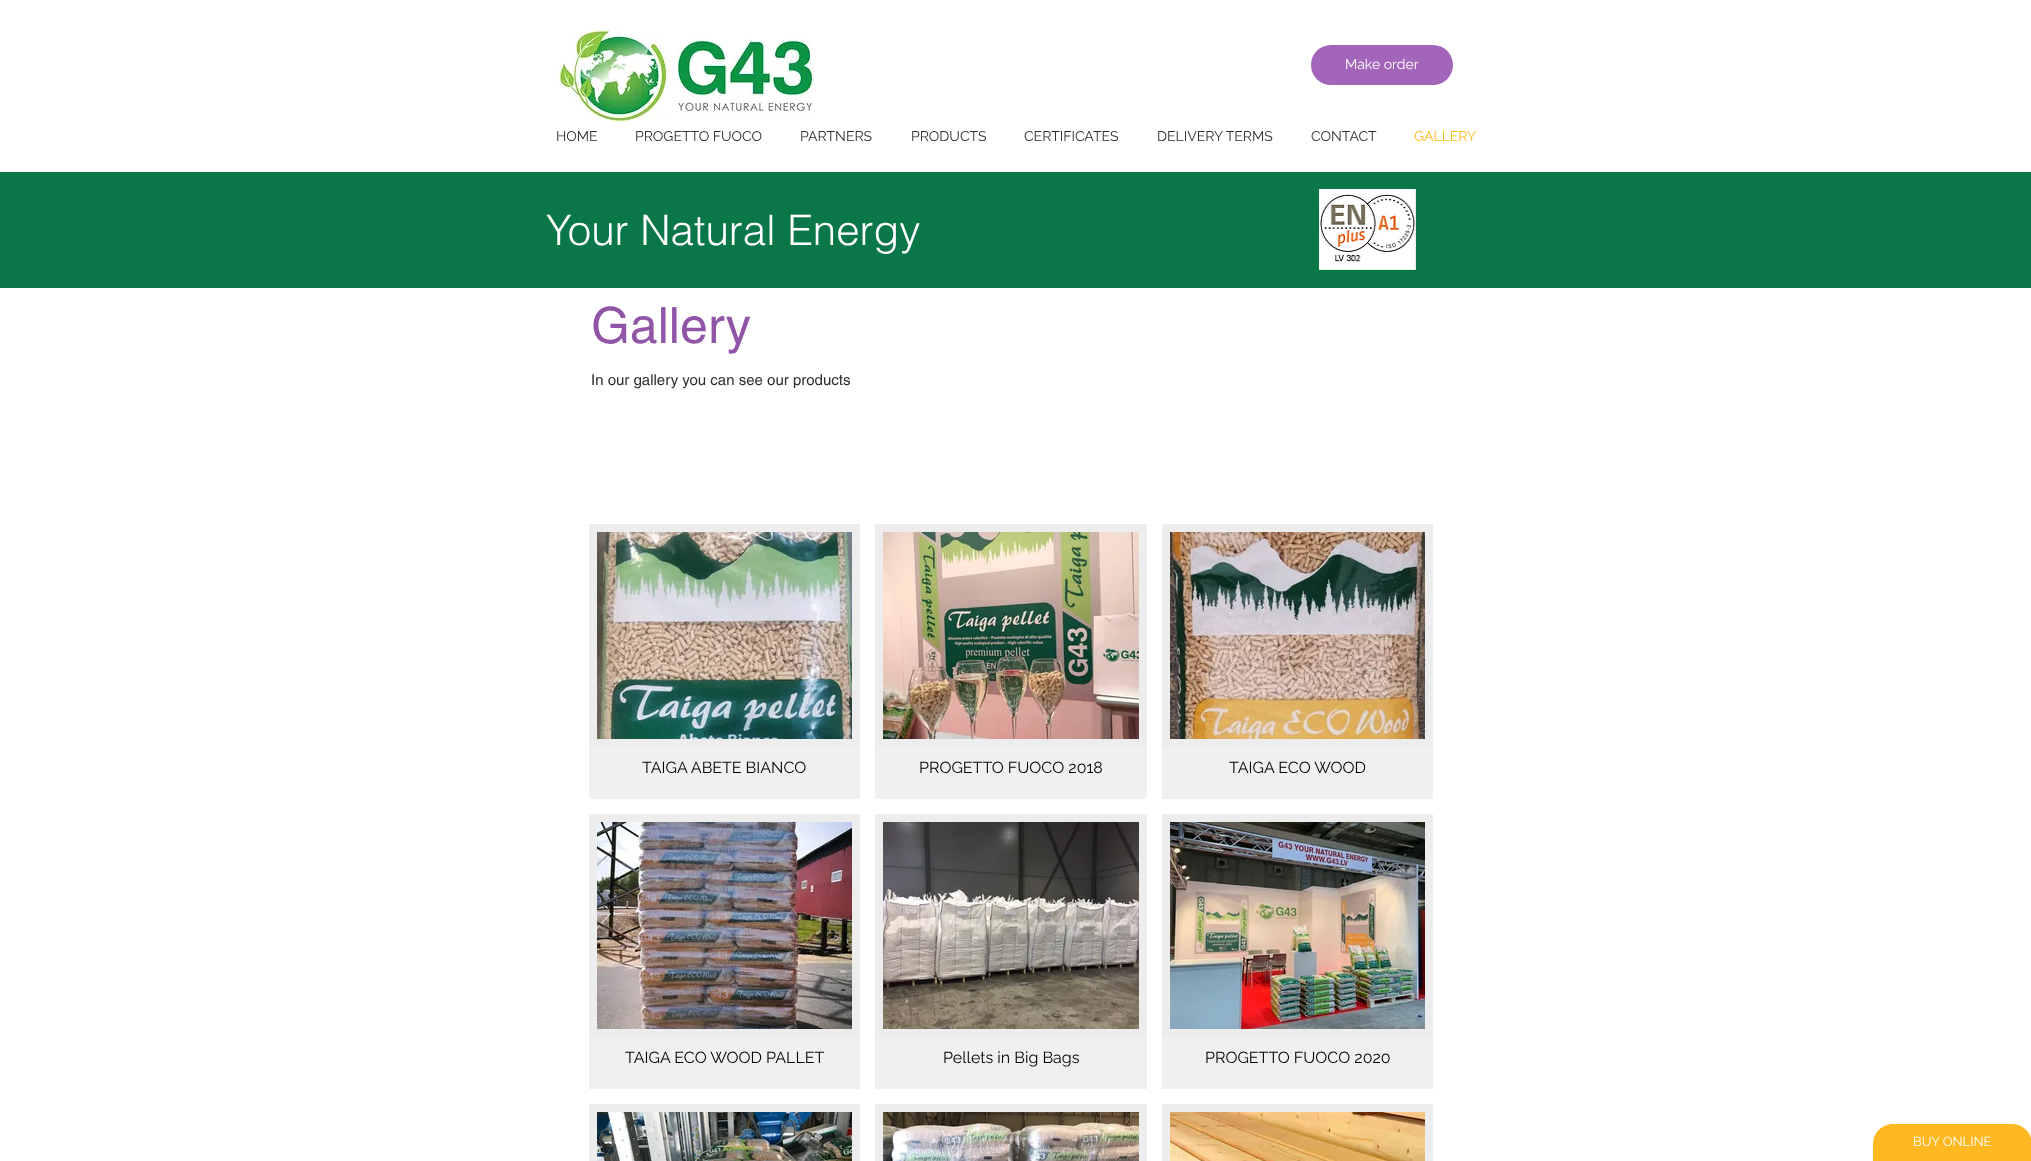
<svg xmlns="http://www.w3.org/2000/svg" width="2031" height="1161">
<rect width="100%" height="100%" fill="#fff"/>
<image x="558" y="30" width="256" height="93" href="media/1.png"/>
<rect x="1311" y="45" width="142" height="40" rx="20" fill="#a265b9"/>
<text x="1345" y="69" style="font-family:Raleway;font-size:14px;fill:#fff">Make order</text>
<text x="556" y="141" style="font-family:Raleway;font-size:14px;fill:#2f2e2e">HOME</text>
<text x="635" y="141" style="font-family:Raleway;font-size:14px;fill:#2f2e2e">PROGETTO FUOCO</text>
<text x="800" y="141" style="font-family:Raleway;font-size:14px;fill:#2f2e2e">PARTNERS</text>
<text x="911" y="141" style="font-family:Raleway;font-size:14px;fill:#2f2e2e">PRODUCTS</text>
<text x="1024" y="141" style="font-family:Raleway;font-size:14px;fill:#2f2e2e">CERTIFICATES</text>
<text x="1157" y="141" style="font-family:Raleway;font-size:14px;fill:#2f2e2e">DELIVERY TERMS</text>
<text x="1311" y="141" style="font-family:Raleway;font-size:14px;fill:#2f2e2e">CONTACT</text>
<text x="1414" y="141" style="font-family:Raleway;font-size:14px;fill:#ffb81f">GALLERY</text>
<rect y="172" width="2031" height="116" fill="#097747"/>
<text x="546" y="245" style="font-family:helvetica;font-size:42px;font-weight:300;fill:#fff">Your Natural Energy</text>
<image x="1319" y="189" width="97" height="81" href="media/2.png"/>
<text x="591" y="343" style="font-family:helvetica;font-size:50px;fill:#9155a7">Gallery</text>
<text x="591" y="385" style="font-family:helvetica;font-size:15px;fill:#2f2e2e">In our gallery you can see our products</text>
<rect x="593" y="528" width="263" height="215" fill="none" stroke="#ededed" stroke-width="8"/>
<image x="597" y="532" width="255" height="207" href="media/3.png"/>
<rect x="589" y="747" width="271" height="52" fill="#f0f0f0"/>
<text x="642" y="773" style="font-family:Raleway;font-size:16px;fill:#000">TAIGA ABETE BIANCO</text>
<rect x="879" y="528" width="264" height="215" fill="none" stroke="#ededed" stroke-width="8"/>
<image x="883" y="532" width="256" height="207" href="media/4.png"/>
<rect x="875" y="747" width="272" height="52" fill="#f0f0f0"/>
<text x="919" y="773" style="font-family:Raleway;font-size:16px;fill:#000">PROGETTO FUOCO 2018</text>
<rect x="1166" y="528" width="263" height="215" fill="none" stroke="#ededed" stroke-width="8"/>
<image x="1170" y="532" width="255" height="207" href="media/5.png"/>
<rect x="1162" y="747" width="271" height="52" fill="#f0f0f0"/>
<text x="1229" y="773" style="font-family:Raleway;font-size:16px;fill:#000">TAIGA ECO WOOD</text>
<rect x="593" y="818" width="263" height="215" fill="none" stroke="#ededed" stroke-width="8"/>
<image x="597" y="822" width="255" height="207" href="media/6.png"/>
<rect x="589" y="1037" width="271" height="52" fill="#f0f0f0"/>
<text x="625" y="1063" style="font-family:Raleway;font-size:16px;fill:#000">TAIGA ECO WOOD PALLET</text>
<rect x="879" y="818" width="264" height="215" fill="none" stroke="#ededed" stroke-width="8"/>
<image x="883" y="822" width="256" height="207" href="media/7.png"/>
<rect x="875" y="1037" width="272" height="52" fill="#f0f0f0"/>
<text x="943" y="1063" style="font-family:Raleway;font-size:16px;fill:#000">Pellets in Big Bags</text>
<rect x="1166" y="818" width="263" height="215" fill="none" stroke="#ededed" stroke-width="8"/>
<image x="1170" y="822" width="255" height="207" href="media/8.png"/>
<rect x="1162" y="1037" width="271" height="52" fill="#f0f0f0"/>
<text x="1205" y="1063" style="font-family:Raleway;font-size:16px;fill:#000">PROGETTO FUOCO 2020</text>
<rect x="593" y="1108" width="263" height="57" fill="none" stroke="#ededed" stroke-width="8"/>
<image x="597" y="1112" width="255" height="49" href="media/9.png"/>
<rect x="879" y="1108" width="264" height="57" fill="none" stroke="#ededed" stroke-width="8"/>
<image x="883" y="1112" width="256" height="49" href="media/10.png"/>
<rect x="1166" y="1108" width="263" height="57" fill="none" stroke="#ededed" stroke-width="8"/>
<image x="1170" y="1112" width="255" height="49" href="media/11.png"/>
<path d="M1893 1124h119c11 0 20 9 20 20v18h-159v-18c0-11 9-20 20-20z" fill="#ffb81f"/>
<text x="1913" y="1146" style="font-family:Raleway;font-size:13px;fill:#fff">BUY ONLINE</text>
</svg>
